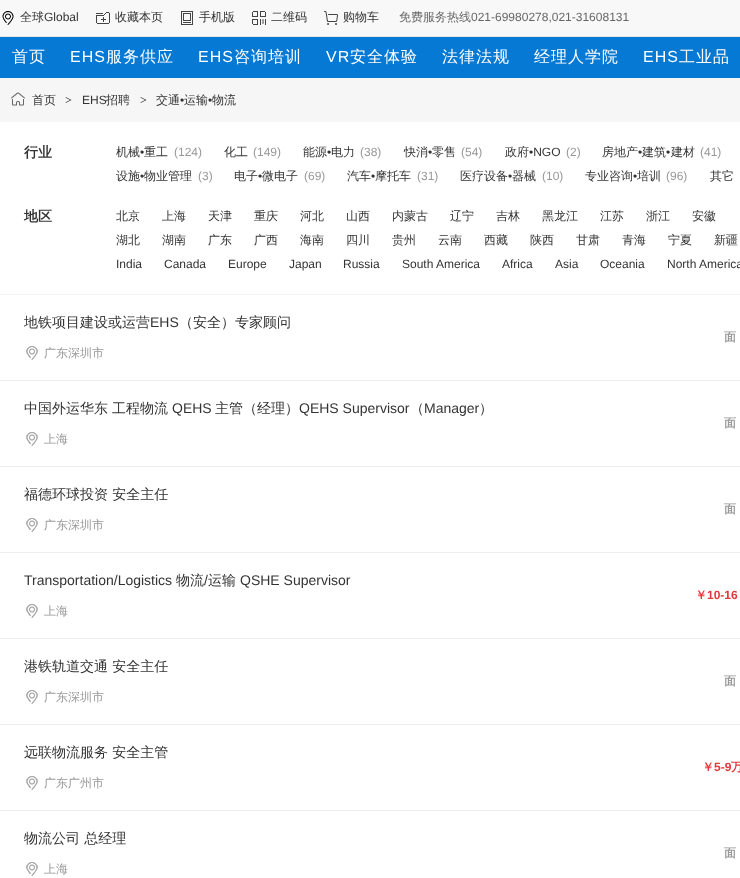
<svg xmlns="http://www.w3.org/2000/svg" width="740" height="878">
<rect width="100%" height="100%" fill="#0679d4"/>
<rect width="740" height="36" fill="#f8f8f8"/>
<rect y="36" width="740" height="1" fill="#e5e5e5"/>
<image x="2" y="11" width="12" height="14" href="media/1.png"/>
<text x="20" y="21" style="font-family:WenQuanYi Zen Hei;font-size:12px;font-weight:500;fill:#333">全球</text>
<text x="44" y="21" style="font-family:Liberation Sans;font-size:12px;fill:#333">Global</text>
<image x="96" y="12" width="14" height="12" href="media/2.png"/>
<text x="115" y="21" style="font-family:WenQuanYi Zen Hei;font-size:12px;font-weight:500;fill:#333">收藏本页</text>
<image x="181" y="11" width="12" height="14" href="media/3.png"/>
<text x="199" y="21" style="font-family:WenQuanYi Zen Hei;font-size:12px;font-weight:500;fill:#333">手机版</text>
<image x="252" y="11" width="14" height="14" href="media/4.png"/>
<text x="271" y="21" style="font-family:WenQuanYi Zen Hei;font-size:12px;font-weight:500;fill:#333">二维码</text>
<image x="324" y="11" width="14" height="14" href="media/5.png"/>
<text x="343" y="21" style="font-family:WenQuanYi Zen Hei;font-size:12px;font-weight:500;fill:#333">购物车</text>
<text x="399" y="21" style="font-family:WenQuanYi Zen Hei;font-size:12px;font-weight:500;fill:#666">免费服务热线</text>
<text x="471" y="21" style="font-family:Liberation Sans;font-size:12px;fill:#666">021-69980278,021-31608131</text>
<text x="12" y="62" style="font-family:WenQuanYi Zen Hei;font-size:16px;font-weight:500;letter-spacing:1px;fill:#fff">首页</text>
<text x="70" y="62" style="font-family:Liberation Sans;font-size:16px;letter-spacing:1px;fill:#fff">EHS</text>
<text x="106" y="62" style="font-family:WenQuanYi Zen Hei;font-size:16px;font-weight:500;letter-spacing:1px;fill:#fff">服务供应</text>
<text x="198" y="62" style="font-family:Liberation Sans;font-size:16px;letter-spacing:1px;fill:#fff">EHS</text>
<text x="234" y="62" style="font-family:WenQuanYi Zen Hei;font-size:16px;font-weight:500;letter-spacing:1px;fill:#fff">咨询培训</text>
<text x="326" y="62" style="font-family:Liberation Sans;font-size:16px;letter-spacing:1px;fill:#fff">VR</text>
<text x="350" y="62" style="font-family:WenQuanYi Zen Hei;font-size:16px;font-weight:500;letter-spacing:1px;fill:#fff">安全体验</text>
<text x="442" y="62" style="font-family:WenQuanYi Zen Hei;font-size:16px;font-weight:500;letter-spacing:1px;fill:#fff">法律法规</text>
<text x="534" y="62" style="font-family:WenQuanYi Zen Hei;font-size:16px;font-weight:500;letter-spacing:1px;fill:#fff">经理人学院</text>
<text x="643" y="62" style="font-family:Liberation Sans;font-size:16px;letter-spacing:1px;fill:#fff">EHS</text>
<text x="679" y="62" style="font-family:WenQuanYi Zen Hei;font-size:16px;font-weight:500;letter-spacing:1px;fill:#fff">工业品</text>
<rect y="78" width="740" height="44" fill="#f6f6f6"/>
<image x="11" y="92" width="14" height="14" href="media/6.png"/>
<text x="32" y="104" style="font-family:WenQuanYi Zen Hei;font-size:12px;font-weight:500;fill:#333">首页</text>
<text x="65" y="104" style="font-family:Liberation Serif;font-size:12px;font-weight:bold;fill:#444">&gt;</text>
<text x="82" y="104" style="font-family:Liberation Sans;font-size:12px;fill:#333">EHS</text>
<text x="106" y="104" style="font-family:WenQuanYi Zen Hei;font-size:12px;font-weight:500;fill:#333">招聘</text>
<text x="140" y="104" style="font-family:Liberation Serif;font-size:12px;font-weight:bold;fill:#444">&gt;</text>
<text x="156" y="104" style="font-family:WenQuanYi Zen Hei;font-size:12px;font-weight:500;fill:#333">交通</text>
<text x="180" y="104" style="font-family:Liberation Sans;font-size:12px;fill:#333">•</text>
<text x="184" y="104" style="font-family:WenQuanYi Zen Hei;font-size:12px;font-weight:500;fill:#333">运输</text>
<text x="208" y="104" style="font-family:Liberation Sans;font-size:12px;fill:#333">•</text>
<text x="212" y="104" style="font-family:WenQuanYi Zen Hei;font-size:12px;font-weight:500;fill:#333">物流</text>
<rect y="122" width="740" height="756" fill="#fff"/>
<rect y="294" width="740" height="1" fill="#f2f2f2"/>
<text x="24" y="157" style="font-family:WenQuanYi Zen Hei;font-size:14px;font-weight:bold;fill:#333">行业</text>
<text x="116" y="156" style="font-family:WenQuanYi Zen Hei;font-size:12px;font-weight:500;fill:#333">机械</text>
<text x="140" y="156" style="font-family:Liberation Sans;font-size:12px;fill:#333">•</text>
<text x="144" y="156" style="font-family:WenQuanYi Zen Hei;font-size:12px;font-weight:500;fill:#333">重工</text>
<text x="174" y="156" style="font-family:Liberation Sans;font-size:12px;fill:#999">(124)</text>
<text x="224" y="156" style="font-family:WenQuanYi Zen Hei;font-size:12px;font-weight:500;fill:#333">化工</text>
<text x="253" y="156" style="font-family:Liberation Sans;font-size:12px;fill:#999">(149)</text>
<text x="303" y="156" style="font-family:WenQuanYi Zen Hei;font-size:12px;font-weight:500;fill:#333">能源</text>
<text x="327" y="156" style="font-family:Liberation Sans;font-size:12px;fill:#333">•</text>
<text x="331" y="156" style="font-family:WenQuanYi Zen Hei;font-size:12px;font-weight:500;fill:#333">电力</text>
<text x="360" y="156" style="font-family:Liberation Sans;font-size:12px;fill:#999">(38)</text>
<text x="404" y="156" style="font-family:WenQuanYi Zen Hei;font-size:12px;font-weight:500;fill:#333">快消</text>
<text x="428" y="156" style="font-family:Liberation Sans;font-size:12px;fill:#333">•</text>
<text x="432" y="156" style="font-family:WenQuanYi Zen Hei;font-size:12px;font-weight:500;fill:#333">零售</text>
<text x="461" y="156" style="font-family:Liberation Sans;font-size:12px;fill:#999">(54)</text>
<text x="505" y="156" style="font-family:WenQuanYi Zen Hei;font-size:12px;font-weight:500;fill:#333">政府</text>
<text x="529" y="156" style="font-family:Liberation Sans;font-size:12px;fill:#333">•NGO</text>
<text x="566" y="156" style="font-family:Liberation Sans;font-size:12px;fill:#999">(2)</text>
<text x="602" y="156" style="font-family:WenQuanYi Zen Hei;font-size:12px;font-weight:500;fill:#333">房地产</text>
<text x="638" y="156" style="font-family:Liberation Sans;font-size:12px;fill:#333">•</text>
<text x="642" y="156" style="font-family:WenQuanYi Zen Hei;font-size:12px;font-weight:500;fill:#333">建筑</text>
<text x="666" y="156" style="font-family:Liberation Sans;font-size:12px;fill:#333">•</text>
<text x="671" y="156" style="font-family:WenQuanYi Zen Hei;font-size:12px;font-weight:500;fill:#333">建材</text>
<text x="700" y="156" style="font-family:Liberation Sans;font-size:12px;fill:#999">(41)</text>
<text x="116" y="180" style="font-family:WenQuanYi Zen Hei;font-size:12px;font-weight:500;fill:#333">设施</text>
<text x="140" y="180" style="font-family:Liberation Sans;font-size:12px;fill:#333">•</text>
<text x="144" y="180" style="font-family:WenQuanYi Zen Hei;font-size:12px;font-weight:500;fill:#333">物业管理</text>
<text x="198" y="180" style="font-family:Liberation Sans;font-size:12px;fill:#999">(3)</text>
<text x="234" y="180" style="font-family:WenQuanYi Zen Hei;font-size:12px;font-weight:500;fill:#333">电子</text>
<text x="258" y="180" style="font-family:Liberation Sans;font-size:12px;fill:#333">•</text>
<text x="262" y="180" style="font-family:WenQuanYi Zen Hei;font-size:12px;font-weight:500;fill:#333">微电子</text>
<text x="304" y="180" style="font-family:Liberation Sans;font-size:12px;fill:#999">(69)</text>
<text x="347" y="180" style="font-family:WenQuanYi Zen Hei;font-size:12px;font-weight:500;fill:#333">汽车</text>
<text x="371" y="180" style="font-family:Liberation Sans;font-size:12px;fill:#333">•</text>
<text x="375" y="180" style="font-family:WenQuanYi Zen Hei;font-size:12px;font-weight:500;fill:#333">摩托车</text>
<text x="417" y="180" style="font-family:Liberation Sans;font-size:12px;fill:#999">(31)</text>
<text x="460" y="180" style="font-family:WenQuanYi Zen Hei;font-size:12px;font-weight:500;fill:#333">医疗设备</text>
<text x="508" y="180" style="font-family:Liberation Sans;font-size:12px;fill:#333">•</text>
<text x="512" y="180" style="font-family:WenQuanYi Zen Hei;font-size:12px;font-weight:500;fill:#333">器械</text>
<text x="542" y="180" style="font-family:Liberation Sans;font-size:12px;fill:#999">(10)</text>
<text x="585" y="180" style="font-family:WenQuanYi Zen Hei;font-size:12px;font-weight:500;fill:#333">专业咨询</text>
<text x="633" y="180" style="font-family:Liberation Sans;font-size:12px;fill:#333">•</text>
<text x="637" y="180" style="font-family:WenQuanYi Zen Hei;font-size:12px;font-weight:500;fill:#333">培训</text>
<text x="666" y="180" style="font-family:Liberation Sans;font-size:12px;fill:#999">(96)</text>
<text x="710" y="180" style="font-family:WenQuanYi Zen Hei;font-size:12px;font-weight:500;fill:#333">其它</text>
<text x="24" y="221" style="font-family:WenQuanYi Zen Hei;font-size:14px;font-weight:bold;fill:#333">地区</text>
<text x="116" y="220" style="font-family:WenQuanYi Zen Hei;font-size:12px;font-weight:500;fill:#333">北京</text>
<text x="162" y="220" style="font-family:WenQuanYi Zen Hei;font-size:12px;font-weight:500;fill:#333">上海</text>
<text x="208" y="220" style="font-family:WenQuanYi Zen Hei;font-size:12px;font-weight:500;fill:#333">天津</text>
<text x="254" y="220" style="font-family:WenQuanYi Zen Hei;font-size:12px;font-weight:500;fill:#333">重庆</text>
<text x="300" y="220" style="font-family:WenQuanYi Zen Hei;font-size:12px;font-weight:500;fill:#333">河北</text>
<text x="346" y="220" style="font-family:WenQuanYi Zen Hei;font-size:12px;font-weight:500;fill:#333">山西</text>
<text x="392" y="220" style="font-family:WenQuanYi Zen Hei;font-size:12px;font-weight:500;fill:#333">内蒙古</text>
<text x="450" y="220" style="font-family:WenQuanYi Zen Hei;font-size:12px;font-weight:500;fill:#333">辽宁</text>
<text x="496" y="220" style="font-family:WenQuanYi Zen Hei;font-size:12px;font-weight:500;fill:#333">吉林</text>
<text x="542" y="220" style="font-family:WenQuanYi Zen Hei;font-size:12px;font-weight:500;fill:#333">黑龙江</text>
<text x="600" y="220" style="font-family:WenQuanYi Zen Hei;font-size:12px;font-weight:500;fill:#333">江苏</text>
<text x="646" y="220" style="font-family:WenQuanYi Zen Hei;font-size:12px;font-weight:500;fill:#333">浙江</text>
<text x="692" y="220" style="font-family:WenQuanYi Zen Hei;font-size:12px;font-weight:500;fill:#333">安徽</text>
<text x="116" y="244" style="font-family:WenQuanYi Zen Hei;font-size:12px;font-weight:500;fill:#333">湖北</text>
<text x="162" y="244" style="font-family:WenQuanYi Zen Hei;font-size:12px;font-weight:500;fill:#333">湖南</text>
<text x="208" y="244" style="font-family:WenQuanYi Zen Hei;font-size:12px;font-weight:500;fill:#333">广东</text>
<text x="254" y="244" style="font-family:WenQuanYi Zen Hei;font-size:12px;font-weight:500;fill:#333">广西</text>
<text x="300" y="244" style="font-family:WenQuanYi Zen Hei;font-size:12px;font-weight:500;fill:#333">海南</text>
<text x="346" y="244" style="font-family:WenQuanYi Zen Hei;font-size:12px;font-weight:500;fill:#333">四川</text>
<text x="392" y="244" style="font-family:WenQuanYi Zen Hei;font-size:12px;font-weight:500;fill:#333">贵州</text>
<text x="438" y="244" style="font-family:WenQuanYi Zen Hei;font-size:12px;font-weight:500;fill:#333">云南</text>
<text x="484" y="244" style="font-family:WenQuanYi Zen Hei;font-size:12px;font-weight:500;fill:#333">西藏</text>
<text x="530" y="244" style="font-family:WenQuanYi Zen Hei;font-size:12px;font-weight:500;fill:#333">陕西</text>
<text x="576" y="244" style="font-family:WenQuanYi Zen Hei;font-size:12px;font-weight:500;fill:#333">甘肃</text>
<text x="622" y="244" style="font-family:WenQuanYi Zen Hei;font-size:12px;font-weight:500;fill:#333">青海</text>
<text x="668" y="244" style="font-family:WenQuanYi Zen Hei;font-size:12px;font-weight:500;fill:#333">宁夏</text>
<text x="714" y="244" style="font-family:WenQuanYi Zen Hei;font-size:12px;font-weight:500;fill:#333">新疆</text>
<text x="116" y="268" style="font-family:Liberation Sans;font-size:12px;fill:#333">India</text>
<text x="164" y="268" style="font-family:Liberation Sans;font-size:12px;fill:#333">Canada</text>
<text x="228" y="268" style="font-family:Liberation Sans;font-size:12px;fill:#333">Europe</text>
<text x="289" y="268" style="font-family:Liberation Sans;font-size:12px;fill:#333">Japan</text>
<text x="343" y="268" style="font-family:Liberation Sans;font-size:12px;fill:#333">Russia</text>
<text x="402" y="268" style="font-family:Liberation Sans;font-size:12px;fill:#333">South America</text>
<text x="502" y="268" style="font-family:Liberation Sans;font-size:12px;fill:#333">Africa</text>
<text x="555" y="268" style="font-family:Liberation Sans;font-size:12px;fill:#333">Asia</text>
<text x="600" y="268" style="font-family:Liberation Sans;font-size:12px;fill:#333">Oceania</text>
<text x="667" y="268" style="font-family:Liberation Sans;font-size:12px;fill:#333">North America</text>
<rect y="380" width="740" height="1" fill="#eee"/>
<text x="24" y="327" style="font-family:WenQuanYi Zen Hei;font-size:14px;font-weight:500;fill:#333">地铁项目建设或运营</text>
<text x="150" y="327" style="font-family:Liberation Sans;font-size:14px;fill:#333">EHS</text>
<text x="179" y="327" style="font-family:WenQuanYi Zen Hei;font-size:14px;font-weight:500;fill:#333">（安全）专家顾问</text>
<image x="26" y="346" width="12" height="14" href="media/7.png"/>
<text x="44" y="357" style="font-family:WenQuanYi Zen Hei;font-size:12px;font-weight:500;fill:#999">广东深圳市</text>
<text x="724" y="341" style="font-family:WenQuanYi Zen Hei;font-size:12px;font-weight:bold;fill:#999">面</text>
<rect y="466" width="740" height="1" fill="#eee"/>
<text x="24" y="413" style="font-family:WenQuanYi Zen Hei;font-size:14px;font-weight:500;fill:#333">中国外运华东</text>
<text x="112" y="413" style="font-family:WenQuanYi Zen Hei;font-size:14px;font-weight:500;fill:#333">工程物流</text>
<text x="172" y="413" style="font-family:Liberation Sans;font-size:14px;fill:#333">QEHS</text>
<text x="215" y="413" style="font-family:WenQuanYi Zen Hei;font-size:14px;font-weight:500;fill:#333">主管（经理）</text>
<text x="299" y="413" style="font-family:Liberation Sans;font-size:14px;fill:#333">QEHS Supervisor</text>
<text x="410" y="413" style="font-family:WenQuanYi Zen Hei;font-size:14px;font-weight:500;fill:#333">（</text>
<text x="424" y="413" style="font-family:Liberation Sans;font-size:14px;fill:#333">Manager</text>
<text x="479" y="413" style="font-family:WenQuanYi Zen Hei;font-size:14px;font-weight:500;fill:#333">）</text>
<image x="26" y="432" width="12" height="14" href="media/7.png"/>
<text x="44" y="443" style="font-family:WenQuanYi Zen Hei;font-size:12px;font-weight:500;fill:#999">上海</text>
<text x="724" y="427" style="font-family:WenQuanYi Zen Hei;font-size:12px;font-weight:bold;fill:#999">面</text>
<rect y="552" width="740" height="1" fill="#eee"/>
<text x="24" y="499" style="font-family:WenQuanYi Zen Hei;font-size:14px;font-weight:500;fill:#333">福德环球投资 安全主任</text>
<image x="26" y="518" width="12" height="14" href="media/7.png"/>
<text x="44" y="529" style="font-family:WenQuanYi Zen Hei;font-size:12px;font-weight:500;fill:#999">广东深圳市</text>
<text x="724" y="513" style="font-family:WenQuanYi Zen Hei;font-size:12px;font-weight:bold;fill:#999">面</text>
<rect y="638" width="740" height="1" fill="#eee"/>
<text x="24" y="585" style="font-family:Liberation Sans;font-size:14px;fill:#333">Transportation/Logistics</text>
<text x="176" y="585" style="font-family:WenQuanYi Zen Hei;font-size:14px;font-weight:500;fill:#333">物流</text>
<text x="204" y="585" style="font-family:Liberation Sans;font-size:14px;fill:#333">/</text>
<text x="208" y="585" style="font-family:WenQuanYi Zen Hei;font-size:14px;font-weight:500;fill:#333">运输</text>
<text x="240" y="585" style="font-family:Liberation Sans;font-size:14px;fill:#333">QSHE Supervisor</text>
<image x="26" y="604" width="12" height="14" href="media/7.png"/>
<text x="44" y="615" style="font-family:WenQuanYi Zen Hei;font-size:12px;font-weight:500;fill:#999">上海</text>
<text x="695" y="599" style="font-family:WenQuanYi Zen Hei;font-size:12px;font-weight:bold;fill:#e4393c">￥</text>
<text x="707" y="599" style="font-family:Liberation Sans;font-size:12px;font-weight:bold;fill:#e4393c">10-16</text>
<rect y="724" width="740" height="1" fill="#eee"/>
<text x="24" y="671" style="font-family:WenQuanYi Zen Hei;font-size:14px;font-weight:500;fill:#333">港铁轨道交通 安全主任</text>
<image x="26" y="690" width="12" height="14" href="media/7.png"/>
<text x="44" y="701" style="font-family:WenQuanYi Zen Hei;font-size:12px;font-weight:500;fill:#999">广东深圳市</text>
<text x="724" y="685" style="font-family:WenQuanYi Zen Hei;font-size:12px;font-weight:bold;fill:#999">面</text>
<rect y="810" width="740" height="1" fill="#eee"/>
<text x="24" y="757" style="font-family:WenQuanYi Zen Hei;font-size:14px;font-weight:500;fill:#333">远联物流服务 安全主管</text>
<image x="26" y="776" width="12" height="14" href="media/7.png"/>
<text x="44" y="787" style="font-family:WenQuanYi Zen Hei;font-size:12px;font-weight:500;fill:#999">广东广州市</text>
<text x="702" y="771" style="font-family:WenQuanYi Zen Hei;font-size:12px;font-weight:bold;fill:#e4393c">￥</text>
<text x="714" y="771" style="font-family:Liberation Sans;font-size:12px;font-weight:bold;fill:#e4393c">5-9</text>
<text x="731" y="771" style="font-family:WenQuanYi Zen Hei;font-size:12px;font-weight:bold;fill:#e4393c">万</text>
<text x="24" y="843" style="font-family:WenQuanYi Zen Hei;font-size:14px;font-weight:500;fill:#333">物流公司 总经理</text>
<image x="26" y="862" width="12" height="14" href="media/7.png"/>
<text x="44" y="873" style="font-family:WenQuanYi Zen Hei;font-size:12px;font-weight:500;fill:#999">上海</text>
<text x="724" y="857" style="font-family:WenQuanYi Zen Hei;font-size:12px;font-weight:bold;fill:#999">面</text>
</svg>
